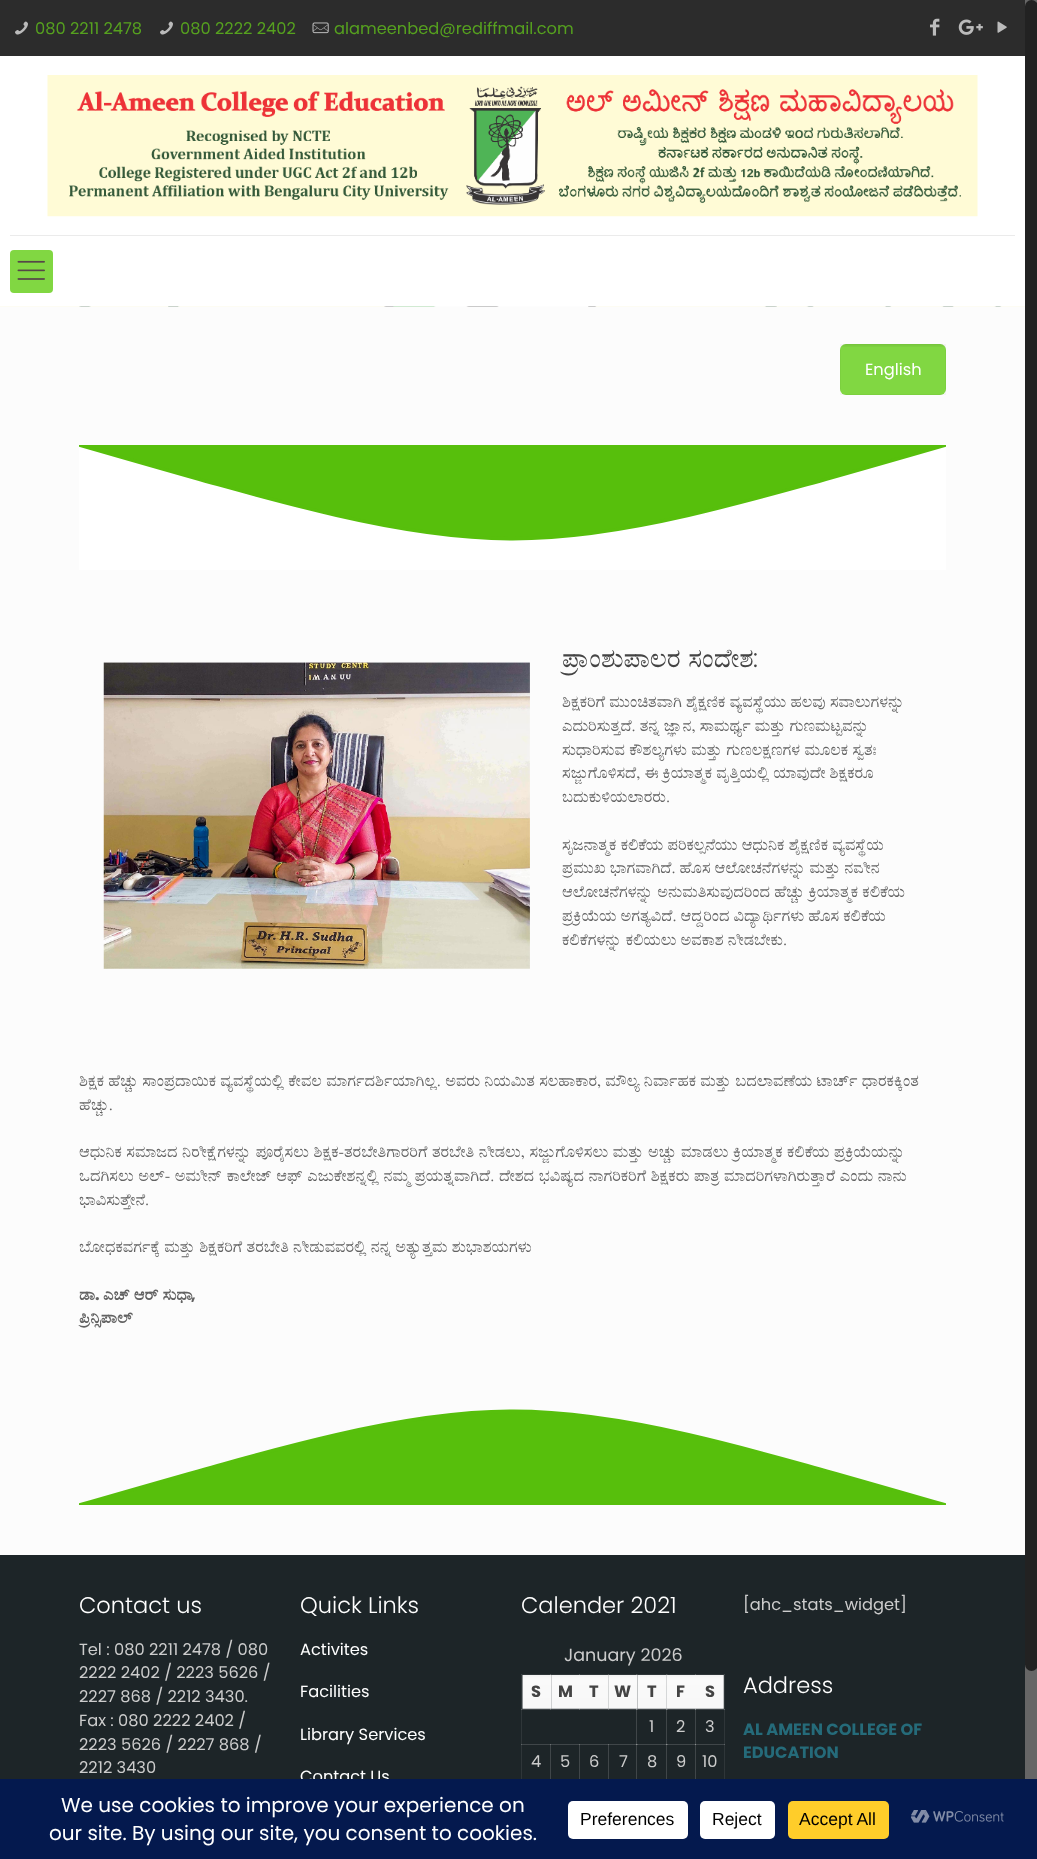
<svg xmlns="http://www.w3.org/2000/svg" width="1037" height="1859">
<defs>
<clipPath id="clip1"><rect x="79" y="445" width="867" height="125"/></clipPath>
<clipPath id="clip2"><rect x="79" y="1380" width="867" height="125"/></clipPath>
</defs>
<rect width="100%" height="100%" fill="#fcfcfc"/>
<image x="0" y="306" width="1025" height="1" href="media/1.png"/>
<rect width="1025" height="56" fill="#2c2c2c"/>
<image x="15" y="21" width="13" height="14" href="media/2.png"/>
<text x="35" y="34" style="font-family:Poppins;font-size:16.25px;fill:#56a11f">080 2211 2478</text>
<image x="160" y="21" width="13" height="14" href="media/2.png"/>
<text x="180" y="34" style="font-family:Poppins;font-size:16.25px;fill:#56a11f">080 2222 2402</text>
<image x="312" y="22" width="17" height="12" href="media/3.png"/>
<text x="334" y="34" style="font-family:Poppins;font-size:16.25px;fill:#56a11f">alameenbed@rediffmail.com</text>
<image x="930" y="18" width="10" height="18" href="media/4.png"/>
<image x="958" y="19" width="25" height="16" href="media/5.png"/>
<image x="997" y="21" width="10" height="12" href="media/6.png"/>
<rect y="56" width="1025" height="250" fill="#fff"/>
<rect x="10" y="235" width="1005" height="1" fill="#ebebeb"/>
<image x="47" y="75" width="931" height="142" href="media/7.png"/>
<rect x="10" y="250" width="43" height="43" rx="4" fill="#81d742"/>
<image x="17" y="260" width="28" height="20" href="media/8.png"/>
<rect x="840" y="344" width="106" height="51" rx="6" fill="#81d742"/>
<image x="841" y="344" width="104" height="3" href="media/9.png"/>
<rect x="840.5" y="344.5" width="105" height="50" fill="none" stroke="#00000008"/>
<text x="865" y="375" style="font-family:Poppins;font-size:16.25px;fill:#fff">English</text>
<rect x="79" y="446" width="867" height="124" fill="#fff"/>
<path d="M79 445c433 125 433 125 867 0z" fill="#57bf0c"/>
<g clip-path="url(#clip1)">
<path d="M79 445c433.5 125 433.5 125 867 0z" fill="none" stroke="#57bf0c" stroke-width="3.3"/>
</g>
<image x="103" y="662" width="427" height="307" href="media/10.png"/>
<text x="562" y="667" word-spacing="1" style="font-family:FreeSerif;font-size:26.25px;fill:#444">ಪ್ರಾಂಶುಪಾಲರ ಸಂದೇಶ</text>
<text x="753" y="667" style="font-family:Poppins;font-size:26.25px;font-weight:300;fill:#444">:</text>
<text x="562" y="707" word-spacing="0.25" style="font-family:FreeSerif;font-size:16.25px;fill:#626262">ಶಿಕ್ಷಕರಿಗೆ ಮುಂಚಿತವಾಗಿ ಶೈಕ್ಷಣಿಕ ವ್ಯವಸ್ಥೆಯು ಹಲವು ಸವಾಲುಗಳನ್ನು</text>
<text x="562" y="731" style="font-family:FreeSerif;font-size:16.25px;fill:#626262">ಎದುರಿಸುತ್ತದೆ. ತನ್ನ ಜ್ಞಾನ, ಸಾಮರ್ಥ್ಯ ಮತ್ತು ಗುಣಮಟ್ಟವನ್ನು</text>
<text x="562" y="755" word-spacing="0.25" style="font-family:FreeSerif;font-size:16.25px;fill:#626262">ಸುಧಾರಿಸುವ ಕೌಶಲ್ಯಗಳು ಮತ್ತು ಗುಣಲಕ್ಷಣಗಳ ಮೂಲಕ ಸ್ವತಃ</text>
<text x="562" y="778" style="font-family:FreeSerif;font-size:16.25px;fill:#626262">ಸಜ್ಜುಗೊಳಿಸದೆ, ಈ ಕ್ರಿಯಾತ್ಮಕ ವೃತ್ತಿಯಲ್ಲಿ ಯಾವುದೇ ಶಿಕ್ಷಕರೂ</text>
<text x="562" y="802" style="font-family:FreeSerif;font-size:16.25px;fill:#626262">ಬದುಕುಳಿಯಲಾರರು.</text>
<text x="562" y="850" word-spacing="0.25" style="font-family:FreeSerif;font-size:16.25px;fill:#626262">ಸೃಜನಾತ್ಮಕ ಕಲಿಕೆಯ ಪರಿಕಲ್ಪನೆಯು ಆಧುನಿಕ ಶೈಕ್ಷಣಿಕ ವ್ಯವಸ್ಥೆಯ</text>
<text x="562" y="873" style="font-family:FreeSerif;font-size:16.25px;fill:#626262">ಪ್ರಮುಖ ಭಾಗವಾಗಿದೆ. ಹೊಸ ಆಲೋಚನೆಗಳನ್ನು ಮತ್ತು ನವೀನ</text>
<text x="562" y="897" word-spacing="0.25" style="font-family:FreeSerif;font-size:16.25px;fill:#626262">ಆಲೋಚನೆಗಳನ್ನು ಅನುಮತಿಸುವುದರಿಂದ ಹೆಚ್ಚು ಕ್ರಿಯಾತ್ಮಕ ಕಲಿಕೆಯ</text>
<text x="562" y="921" style="font-family:FreeSerif;font-size:16.25px;fill:#626262">ಪ್ರಕ್ರಿಯೆಯ ಅಗತ್ಯವಿದೆ. ಆದ್ದರಿಂದ ವಿದ್ಯಾರ್ಥಿಗಳು ಹೊಸ ಕಲಿಕೆಯ</text>
<text x="562" y="945" style="font-family:FreeSerif;font-size:16.25px;fill:#626262">ಕಲಿಕೆಗಳನ್ನು ಕಲಿಯಲು ಅವಕಾಶ ನೀಡಬೇಕು.</text>
<text x="79" y="1086" word-spacing="0.2" style="font-family:FreeSerif;font-size:16.25px;fill:#626262">ಶಿಕ್ಷಕ ಹೆಚ್ಚು ಸಾಂಪ್ರದಾಯಿಕ ವ್ಯವಸ್ಥೆಯಲ್ಲಿ ಕೇವಲ ಮಾರ್ಗದರ್ಶಿಯಾಗಿಲ್ಲ. ಅವರು ನಿಯಮಿತ ಸಲಹಾಕಾರ, ಮೌಲ್ಯ ನಿರ್ವಾಹಕ ಮತ್ತು ಬದಲಾವಣೆಯ ಟಾರ್ಚ್ ಧಾರಕಕ್ಕಿಂತ</text>
<text x="79" y="1110" style="font-family:FreeSerif;font-size:16.25px;fill:#626262">ಹೆಚ್ಚು.</text>
<text x="79" y="1157" word-spacing="0.5" style="font-family:FreeSerif;font-size:16.25px;fill:#626262">ಆಧುನಿಕ ಸಮಾಜದ ನಿರೀಕ್ಷೆಗಳನ್ನು ಪೂರೈಸಲು ಶಿಕ್ಷಕ-ತರಬೇತಿಗಾರರಿಗೆ ತರಬೇತಿ ನೀಡಲು, ಸಜ್ಜುಗೊಳಿಸಲು ಮತ್ತು ಅಚ್ಚು ಮಾಡಲು ಕ್ರಿಯಾತ್ಮಕ ಕಲಿಕೆಯ ಪ್ರಕ್ರಿಯೆಯನ್ನು</text>
<text x="79" y="1181" word-spacing="0.5" style="font-family:FreeSerif;font-size:16.25px;fill:#626262">ಒದಗಿಸಲು ಅಲ್- ಅಮೀನ್ ಕಾಲೇಜ್ ಆಫ್ ಎಜುಕೇಶನ್ನಲ್ಲಿ ನಮ್ಮ ಪ್ರಯತ್ನವಾಗಿದೆ. ದೇಶದ ಭವಿಷ್ಯದ ನಾಗರಿಕರಿಗೆ ಶಿಕ್ಷಕರು ಪಾತ್ರ ಮಾದರಿಗಳಾಗಿರುತ್ತಾರೆ ಎಂದು ನಾನು</text>
<text x="79" y="1205" style="font-family:FreeSerif;font-size:16.25px;fill:#626262">ಭಾವಿಸುತ್ತೇನೆ.</text>
<text x="79" y="1252" word-spacing="0.25" style="font-family:FreeSerif;font-size:16.25px;fill:#626262">ಬೋಧಕವರ್ಗಕ್ಕೆ ಮತ್ತು ಶಿಕ್ಷಕರಿಗೆ ತರಬೇತಿ ನೀಡುವವರಲ್ಲಿ ನನ್ನ ಅತ್ಯುತ್ತಮ ಶುಭಾಶಯಗಳು</text>
<text x="79" y="1300" style="font-family:FreeSerif;font-size:16.25px;font-weight:bold;fill:#626262">ಡಾ</text>
<text x="95" y="1300" style="font-family:Poppins;font-size:16.25px;font-weight:bold;fill:#626262">.</text>
<text x="103" y="1300" style="font-family:FreeSerif;font-size:16.25px;font-weight:bold;fill:#626262">ಎಚ್ ಆರ್ ಸುಧಾ</text>
<text x="191" y="1300" style="font-family:Poppins;font-size:16.25px;font-weight:bold;fill:#626262">,</text>
<text x="79" y="1323" style="font-family:FreeSerif;font-size:16.25px;font-weight:bold;fill:#626262">ಪ್ರಿನ್ಸಿಪಾಲ್</text>
<path d="M79 1505c433-125 433-125 867 0z" fill="#57bf0c"/>
<g clip-path="url(#clip2)">
<path d="M79 1505c433.5-125 433.5-125 867 0z" fill="none" stroke="#57bf0c" stroke-width="3.3"/>
</g>
<rect y="1555" width="1025" height="224" fill="#1d2528"/>
<rect x="724" y="1674" width="1" height="106" fill="#2f3639"/>
<rect x="521" y="1709" width="1" height="71" fill="#2f3639"/>
<rect x="521" y="1709" width="117" height="1" fill="#2f3639"/>
<rect x="521" y="1709" width="1" height="1" fill="#404649"/>
<rect x="636" y="1709" width="1" height="36" fill="#404649"/>
<rect x="636" y="1709" width="32" height="1" fill="#2f3639"/>
<rect x="636" y="1709" width="2" height="1" fill="#404649"/>
<rect x="636" y="1709" width="1" height="1" fill="#5d6365"/>
<rect x="666" y="1709" width="1" height="36" fill="#404649"/>
<rect x="666" y="1709" width="30" height="1" fill="#2f3639"/>
<rect x="666" y="1709" width="2" height="1" fill="#404649"/>
<rect x="666" y="1709" width="1" height="1" fill="#5d6365"/>
<rect x="695" y="1709" width="1" height="36" fill="#404649"/>
<rect x="521" y="1744" width="30" height="1" fill="#404649"/>
<rect x="521" y="1744" width="1" height="1" fill="#5d6365"/>
<rect x="550" y="1744" width="1" height="36" fill="#404649"/>
<rect x="550" y="1744" width="30" height="1" fill="#404649"/>
<rect x="550" y="1744" width="1" height="1" fill="#6a6f71"/>
<rect x="579" y="1744" width="1" height="36" fill="#404649"/>
<rect x="579" y="1744" width="30" height="1" fill="#404649"/>
<rect x="579" y="1744" width="1" height="1" fill="#6a6f71"/>
<rect x="608" y="1744" width="1" height="36" fill="#404649"/>
<rect x="608" y="1744" width="30" height="1" fill="#404649"/>
<rect x="608" y="1744" width="1" height="1" fill="#6a6f71"/>
<rect x="636" y="1744" width="1" height="36" fill="#404649"/>
<rect x="636" y="1744" width="32" height="1" fill="#404649"/>
<rect x="636" y="1744" width="2" height="1" fill="#5d6365"/>
<rect x="636" y="1744" width="1" height="1" fill="#8b9090"/>
<rect x="666" y="1744" width="1" height="36" fill="#404649"/>
<rect x="666" y="1744" width="30" height="1" fill="#404649"/>
<rect x="666" y="1744" width="2" height="1" fill="#5d6365"/>
<rect x="666" y="1744" width="1" height="1" fill="#8b9090"/>
<rect x="695" y="1744" width="1" height="36" fill="#404649"/>
<text x="79" y="1613" style="font-family:Poppins;font-size:22.5px;font-weight:300;fill:#fff">Contact us</text>
<text x="79" y="1655" style="font-family:Poppins;font-size:16.25px;fill:#ccc">Tel : 080 2211 2478 / 080</text>
<text x="79" y="1678" style="font-family:Poppins;font-size:16.25px;fill:#ccc">2222 2402 / 2223 5626 /</text>
<text x="79" y="1702" style="font-family:Poppins;font-size:16.25px;fill:#ccc">2227 868 / 2212 3430.</text>
<text x="79" y="1726" style="font-family:Poppins;font-size:16.25px;fill:#ccc">Fax : 080 2222 2402 /</text>
<text x="79" y="1750" style="font-family:Poppins;font-size:16.25px;fill:#ccc">2223 5626 / 2227 868 /</text>
<text x="79" y="1773" style="font-family:Poppins;font-size:16.25px;fill:#ccc">2212 3430</text>
<text x="300" y="1613" style="font-family:Poppins;font-size:22.5px;font-weight:300;fill:#fff">Quick Links</text>
<text x="300" y="1655" style="font-family:Poppins;font-size:16.25px;fill:#fff">Activites</text>
<text x="300" y="1697" style="font-family:Poppins;font-size:16.25px;fill:#fff">Facilities</text>
<text x="300" y="1740" style="font-family:Poppins;font-size:16.25px;fill:#fff">Library Services</text>
<text x="300" y="1782" style="font-family:Poppins;font-size:16.25px;fill:#fff">Contact Us</text>
<text x="521" y="1613" style="font-family:Poppins;font-size:22.5px;font-weight:300;fill:#fff">Calender 2021</text>
<text x="564" y="1661" style="font-family:Poppins;font-size:17.5px;fill:#ccc">January 2026</text>
<image x="522" y="1675" width="30" height="34" href="media/11.png"/>
<rect x="695" y="1674" width="30" height="1" fill="#2f3639"/>
<image x="695" y="1675" width="29" height="34" href="media/13.png"/>
<rect x="695" y="1709" width="30" height="1" fill="#404649"/>
<rect x="695" y="1709" width="1" height="1" fill="#6a6f71"/>
<rect x="695" y="1674" width="1" height="36" fill="#ffffff14"/>
<rect x="666" y="1674" width="30" height="1" fill="#ffffff14"/>
<image x="580" y="1675" width="29" height="34" href="media/13.png"/>
<image x="608" y="1675" width="30" height="34" href="media/14.png"/>
<image x="637" y="1675" width="30" height="34" href="media/15.png"/>
<image x="666" y="1675" width="29" height="34" href="media/12.png"/>
<rect x="695" y="1674" width="1" height="36" fill="#ffffff14"/>
<rect x="666" y="1709" width="30" height="1" fill="#ffffff14"/>
<rect x="666" y="1674" width="1" height="36" fill="#ffffff14"/>
<rect x="636" y="1674" width="32" height="1" fill="#ffffff14"/>
<rect x="666" y="1674" width="1" height="36" fill="#ffffff14"/>
<rect x="636" y="1709" width="32" height="1" fill="#ffffff14"/>
<rect x="636" y="1674" width="1" height="36" fill="#ffffff14"/>
<rect x="608" y="1674" width="30" height="1" fill="#ffffff14"/>
<rect x="636" y="1674" width="1" height="36" fill="#ffffff14"/>
<rect x="608" y="1709" width="30" height="1" fill="#ffffff14"/>
<rect x="608" y="1674" width="1" height="36" fill="#ffffff14"/>
<rect x="579" y="1674" width="30" height="1" fill="#ffffff14"/>
<image x="551" y="1675" width="29" height="34" href="media/12.png"/>
<rect x="608" y="1674" width="1" height="36" fill="#ffffff14"/>
<rect x="579" y="1709" width="30" height="1" fill="#ffffff14"/>
<rect x="579" y="1674" width="1" height="36" fill="#ffffff14"/>
<rect x="550" y="1674" width="30" height="1" fill="#ffffff14"/>
<rect x="579" y="1674" width="1" height="36" fill="#ffffff14"/>
<rect x="550" y="1709" width="30" height="1" fill="#ffffff14"/>
<rect x="550" y="1674" width="1" height="36" fill="#ffffff14"/>
<rect x="521" y="1674" width="30" height="1" fill="#ffffff14"/>
<rect x="550" y="1674" width="1" height="36" fill="#ffffff14"/>
<rect x="521" y="1709" width="30" height="1" fill="#ffffff14"/>
<rect x="521" y="1674" width="1" height="36" fill="#ffffff14"/>
<text x="531" y="1697" style="font-family:Poppins;font-size:16.25px;font-weight:bold;fill:#444">S</text>
<text x="558" y="1697" style="font-family:Poppins;font-size:16.25px;font-weight:bold;fill:#444">M</text>
<text x="589" y="1697" style="font-family:Poppins;font-size:16.25px;font-weight:bold;fill:#444">T</text>
<text x="614" y="1697" style="font-family:Poppins;font-size:16.25px;font-weight:bold;fill:#444">W</text>
<text x="647" y="1697" style="font-family:Poppins;font-size:16.25px;font-weight:bold;fill:#444">T</text>
<text x="676" y="1697" style="font-family:Poppins;font-size:16.25px;font-weight:bold;fill:#444">F</text>
<rect x="724" y="1674" width="1" height="1" fill="#404649"/>
<text x="705" y="1697" style="font-family:Poppins;font-size:16.25px;font-weight:bold;fill:#444">S</text>
<text x="649" y="1732" style="font-family:Poppins;font-size:16.25px;fill:#ccc">1</text>
<text x="676" y="1732" style="font-family:Poppins;font-size:16.25px;fill:#ccc">2</text>
<rect x="724" y="1709" width="1" height="1" fill="#5d6365"/>
<text x="705" y="1732" style="font-family:Poppins;font-size:16.25px;fill:#ccc">3</text>
<text x="531" y="1767" style="font-family:Poppins;font-size:16.25px;fill:#ccc">4</text>
<text x="560" y="1767" style="font-family:Poppins;font-size:16.25px;fill:#ccc">5</text>
<text x="589" y="1767" style="font-family:Poppins;font-size:16.25px;fill:#ccc">6</text>
<text x="619" y="1767" style="font-family:Poppins;font-size:16.25px;fill:#ccc">7</text>
<text x="647" y="1767" style="font-family:Poppins;font-size:16.25px;fill:#ccc">8</text>
<text x="676" y="1767" style="font-family:Poppins;font-size:16.25px;fill:#ccc">9</text>
<rect x="695" y="1744" width="30" height="1" fill="#404649"/>
<rect x="695" y="1744" width="1" height="1" fill="#8b9090"/>
<rect x="724" y="1744" width="1" height="1" fill="#5d6365"/>
<text x="702" y="1767" style="font-family:Poppins;font-size:16.25px;fill:#ccc">10</text>
<text x="743" y="1610" style="font-family:Poppins;font-size:16.25px;fill:#ccc">[ahc_stats_widget]</text>
<text x="743" y="1693" style="font-family:Poppins;font-size:22.5px;font-weight:300;fill:#fff">Address</text>
<text x="743" y="1735" style="font-family:Poppins;font-size:16.25px;font-weight:bold;fill:#256b7a">AL AMEEN COLLEGE OF</text>
<text x="743" y="1758" style="font-family:Poppins;font-size:16.25px;font-weight:bold;fill:#256b7a">EDUCATION</text>
<rect x="1025" width="12" height="1779" fill="#666"/>
<rect x="1025" width="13" height="1671" rx="6.5" fill="#222"/>
<rect y="1779" width="1037" height="80" fill="#04194e"/>
<text x="61" y="1812" style="font-family:Poppins;font-size:20px;fill:#fff">We use cookies to improve your experience on</text>
<text x="49" y="1840" style="font-family:Poppins;font-size:20px;fill:#fff">our site. By using our site, you consent to cookies.</text>
<rect x="568" y="1801" width="120" height="38" rx="5" fill="#fff"/>
<text x="580" y="1825" style="font-family:Liberation Sans;font-size:17.5px;fill:#000">Preferences</text>
<rect x="700" y="1801" width="75" height="38" rx="5" fill="#fff"/>
<text x="712" y="1825" style="font-family:Liberation Sans;font-size:17.5px;fill:#000">Reject</text>
<rect x="788" y="1801" width="101" height="38" rx="5" fill="#ffcd2a"/>
<text x="799" y="1825" style="font-family:Liberation Sans;font-size:17.5px;fill:#000">Accept All</text>
<image x="911" y="1810" width="93" height="13" href="media/16.png"/>
</svg>
